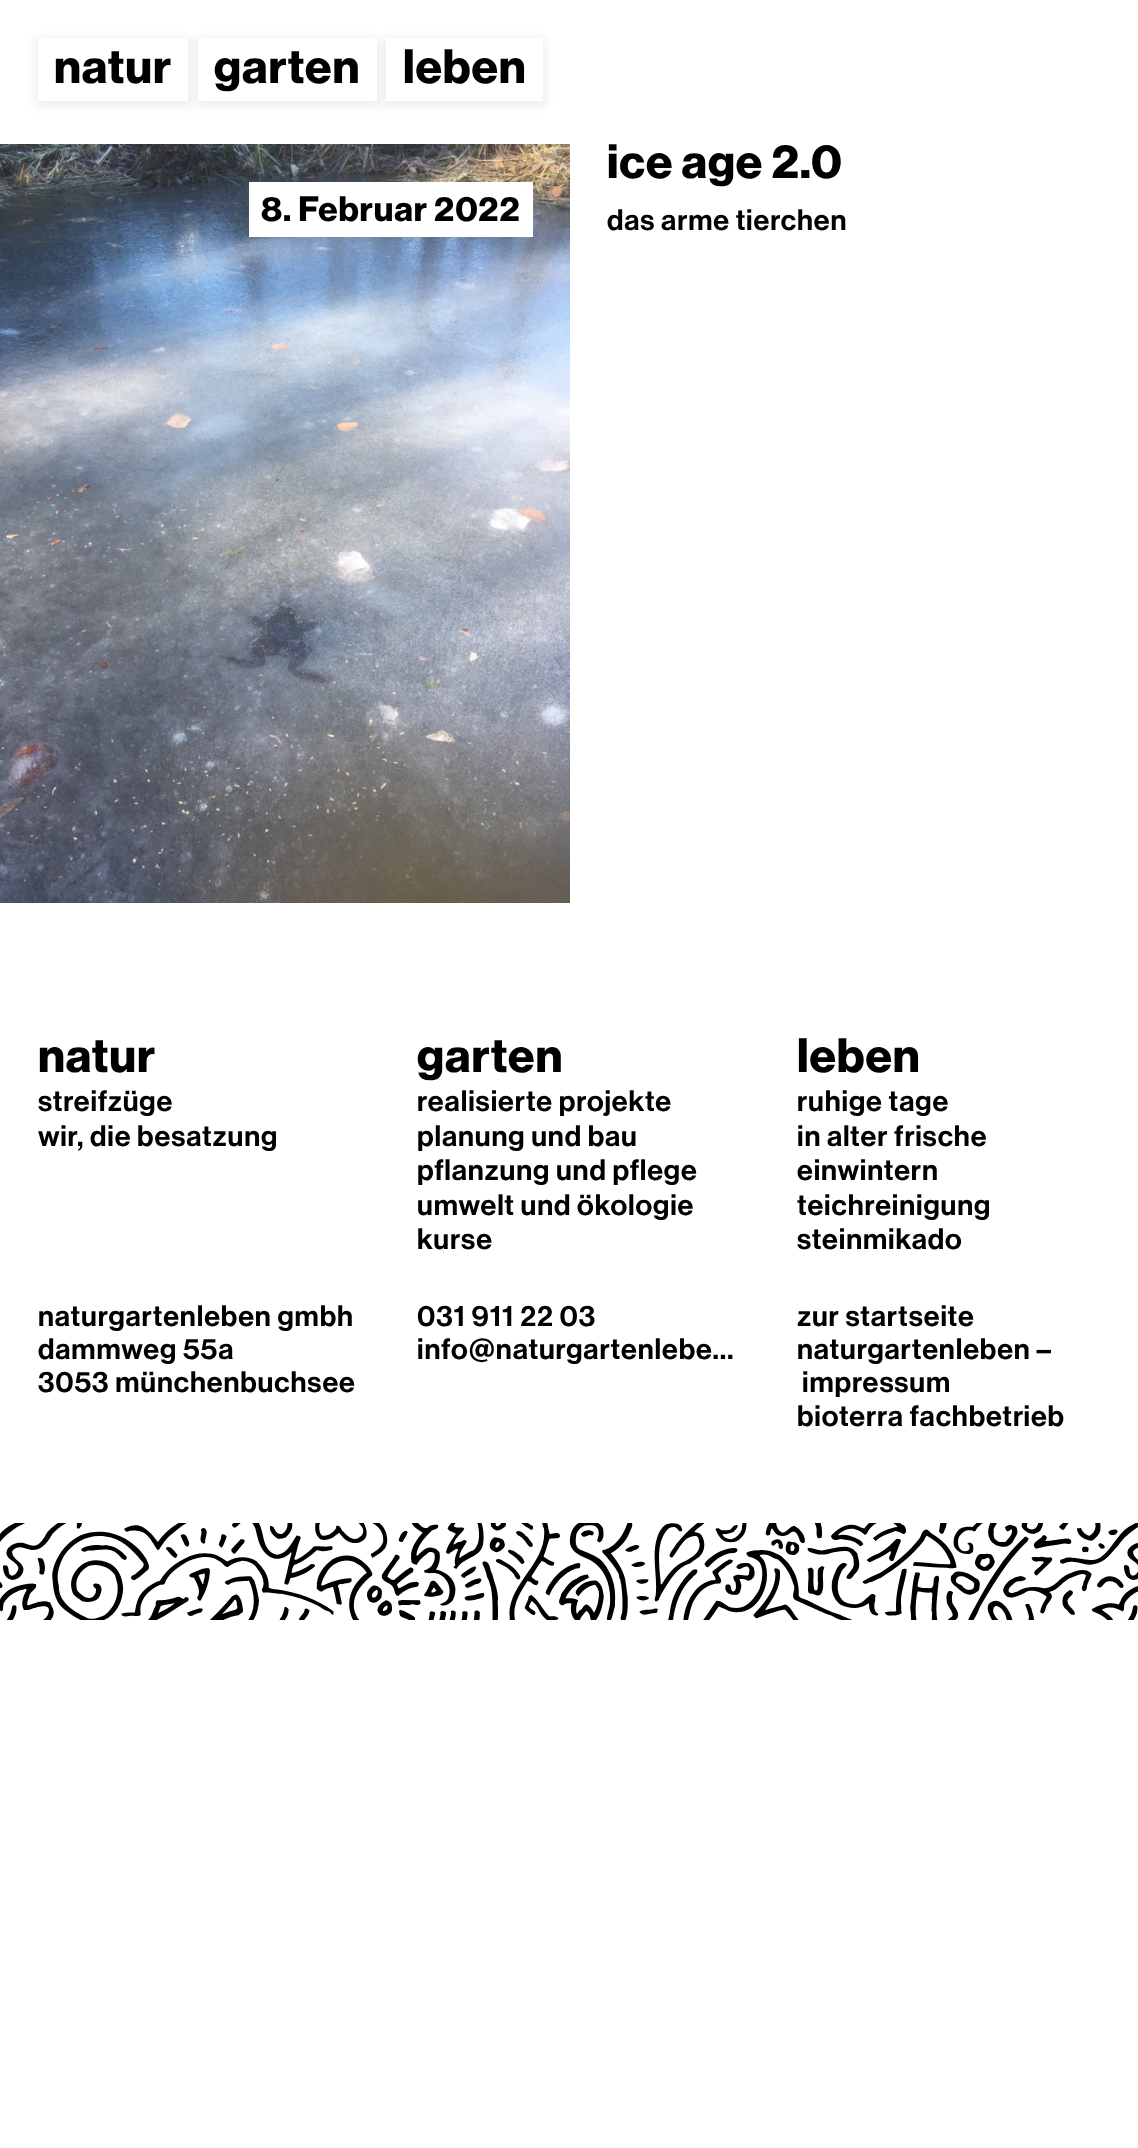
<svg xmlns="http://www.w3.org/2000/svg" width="1138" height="2148">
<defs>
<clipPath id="clip1"><rect x="797" y="1188" width="327" height="35"/></clipPath>
</defs>
<rect width="100%" height="100%" fill="#fff"/>
<rect x="35" y="38" width="156" height="69" fill="#6464641a" filter="blur(4px)"/>
<rect x="38" y="38" width="150" height="63" fill="#fff"/>
<text x="54" y="83" style="font-family:'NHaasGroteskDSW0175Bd';font-size:47.25px;font-weight:bold;letter-spacing:0.9px;fill:#000">natur</text>
<rect x="195" y="38" width="185" height="69" fill="#6464641a" filter="blur(4px)"/>
<rect x="198" y="38" width="179" height="63" fill="#fff"/>
<text x="214" y="83" style="font-family:'NHaasGroteskDSW0175Bd';font-size:47.25px;font-weight:bold;letter-spacing:0.9px;fill:#000">garten</text>
<rect x="383" y="38" width="163" height="69" fill="#6464641a" filter="blur(4px)"/>
<rect x="386" y="38" width="157" height="63" fill="#fff"/>
<text x="403" y="83" style="font-family:'NHaasGroteskDSW0175Bd';font-size:47.25px;font-weight:bold;letter-spacing:0.9px;fill:#000">leben</text>
<image x="0" y="144" width="570" height="759" href="media/1.png"/>
<rect x="249" y="182" width="284" height="55" fill="#fff"/>
<text x="261" y="221" style="font-family:'NHaasGroteskDSW0175Bd';font-size:34.5px;font-weight:bold;letter-spacing:0.9px;fill:#000">8. Februar 2022</text>
<text x="607" y="178" style="font-family:'NHaasGroteskDSW0175Bd';font-size:47.25px;font-weight:bold;letter-spacing:0.9px;fill:#000">ice age 2.0</text>
<text x="607" y="230" style="font-family:'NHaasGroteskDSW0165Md';font-size:29px;font-weight:500;letter-spacing:0.9px;fill:#000">das arme tierchen</text>
<image x="0" y="1523" width="1138" height="97" href="media/2.png"/>
<text x="38" y="1072" style="font-family:'NHaasGroteskDSW0175Bd';font-size:47.25px;font-weight:bold;letter-spacing:0.9px;fill:#000">natur</text>
<text x="38" y="1111" style="font-family:'NHaasGroteskDSW0165Md';font-size:29px;font-weight:500;letter-spacing:0.9px;fill:#000">streifzüge</text>
<text x="38" y="1146" style="font-family:'NHaasGroteskDSW0165Md';font-size:29px;font-weight:500;letter-spacing:0.9px;fill:#000">wir, die besatzung</text>
<text x="417" y="1072" style="font-family:'NHaasGroteskDSW0175Bd';font-size:47.25px;font-weight:bold;letter-spacing:0.9px;fill:#000">garten</text>
<text x="417" y="1111" style="font-family:'NHaasGroteskDSW0165Md';font-size:29px;font-weight:500;letter-spacing:0.9px;fill:#000">realisierte projekte</text>
<text x="417" y="1146" style="font-family:'NHaasGroteskDSW0165Md';font-size:29px;font-weight:500;letter-spacing:0.9px;fill:#000">planung und bau</text>
<text x="417" y="1180" style="font-family:'NHaasGroteskDSW0165Md';font-size:29px;font-weight:500;letter-spacing:0.9px;fill:#000">pflanzung und pflege</text>
<text x="417" y="1215" style="font-family:'NHaasGroteskDSW0165Md';font-size:29px;font-weight:500;letter-spacing:0.9px;fill:#000">umwelt und ökologie</text>
<text x="417" y="1249" style="font-family:'NHaasGroteskDSW0165Md';font-size:29px;font-weight:500;letter-spacing:0.9px;fill:#000">kurse</text>
<text x="797" y="1072" style="font-family:'NHaasGroteskDSW0175Bd';font-size:47.25px;font-weight:bold;letter-spacing:0.9px;fill:#000">leben</text>
<text x="797" y="1111" style="font-family:'NHaasGroteskDSW0165Md';font-size:29px;font-weight:500;letter-spacing:0.9px;fill:#000">ruhige tage</text>
<text x="797" y="1146" style="font-family:'NHaasGroteskDSW0165Md';font-size:29px;font-weight:500;letter-spacing:0.9px;fill:#000">in alter frische</text>
<text x="797" y="1180" style="font-family:'NHaasGroteskDSW0165Md';font-size:29px;font-weight:500;letter-spacing:0.9px;fill:#000">einwintern</text>
<g clip-path="url(#clip1)">
<text x="797" y="1215" style="font-family:'NHaasGroteskDSW0165Md';font-size:29px;font-weight:500;letter-spacing:0.9px;fill:#000">teichreinigung</text>
</g>
<text x="797" y="1249" style="font-family:'NHaasGroteskDSW0165Md';font-size:29px;font-weight:500;letter-spacing:0.9px;fill:#000">steinmikado</text>
<text x="38" y="1326" style="font-family:'NHaasGroteskDSW0165Md';font-size:29px;font-weight:500;letter-spacing:0.9px;fill:#000">naturgartenleben gmbh</text>
<text x="38" y="1359" style="font-family:'NHaasGroteskDSW0165Md';font-size:29px;font-weight:500;letter-spacing:0.9px;fill:#000">dammweg 55a</text>
<text x="38" y="1392" style="font-family:'NHaasGroteskDSW0165Md';font-size:29px;font-weight:500;letter-spacing:0.9px;fill:#000">3053 münchenbuchsee</text>
<text x="417" y="1326" style="font-family:'NHaasGroteskDSW0165Md';font-size:29px;font-weight:500;letter-spacing:0.9px;fill:#000">031 911 22 03</text>
<text x="417" y="1359" style="font-family:'NHaasGroteskDSW0165Md';font-size:29px;font-weight:500;letter-spacing:0.9px;fill:#000">info@naturgartenlebe…</text>
<text x="797" y="1326" style="font-family:'NHaasGroteskDSW0165Md';font-size:29px;font-weight:500;letter-spacing:0.9px;fill:#000">zur startseite</text>
<text x="797" y="1359" style="font-family:'NHaasGroteskDSW0165Md';font-size:29px;font-weight:500;letter-spacing:0.9px;fill:#000">naturgartenleben –</text>
<text x="802" y="1392" style="font-family:'NHaasGroteskDSW0165Md';font-size:29px;font-weight:500;letter-spacing:0.9px;fill:#000">impressum</text>
<text x="797" y="1426" style="font-family:'NHaasGroteskDSW0165Md';font-size:29px;font-weight:500;letter-spacing:0.9px;fill:#000">bioterra fachbetrieb</text>
</svg>
